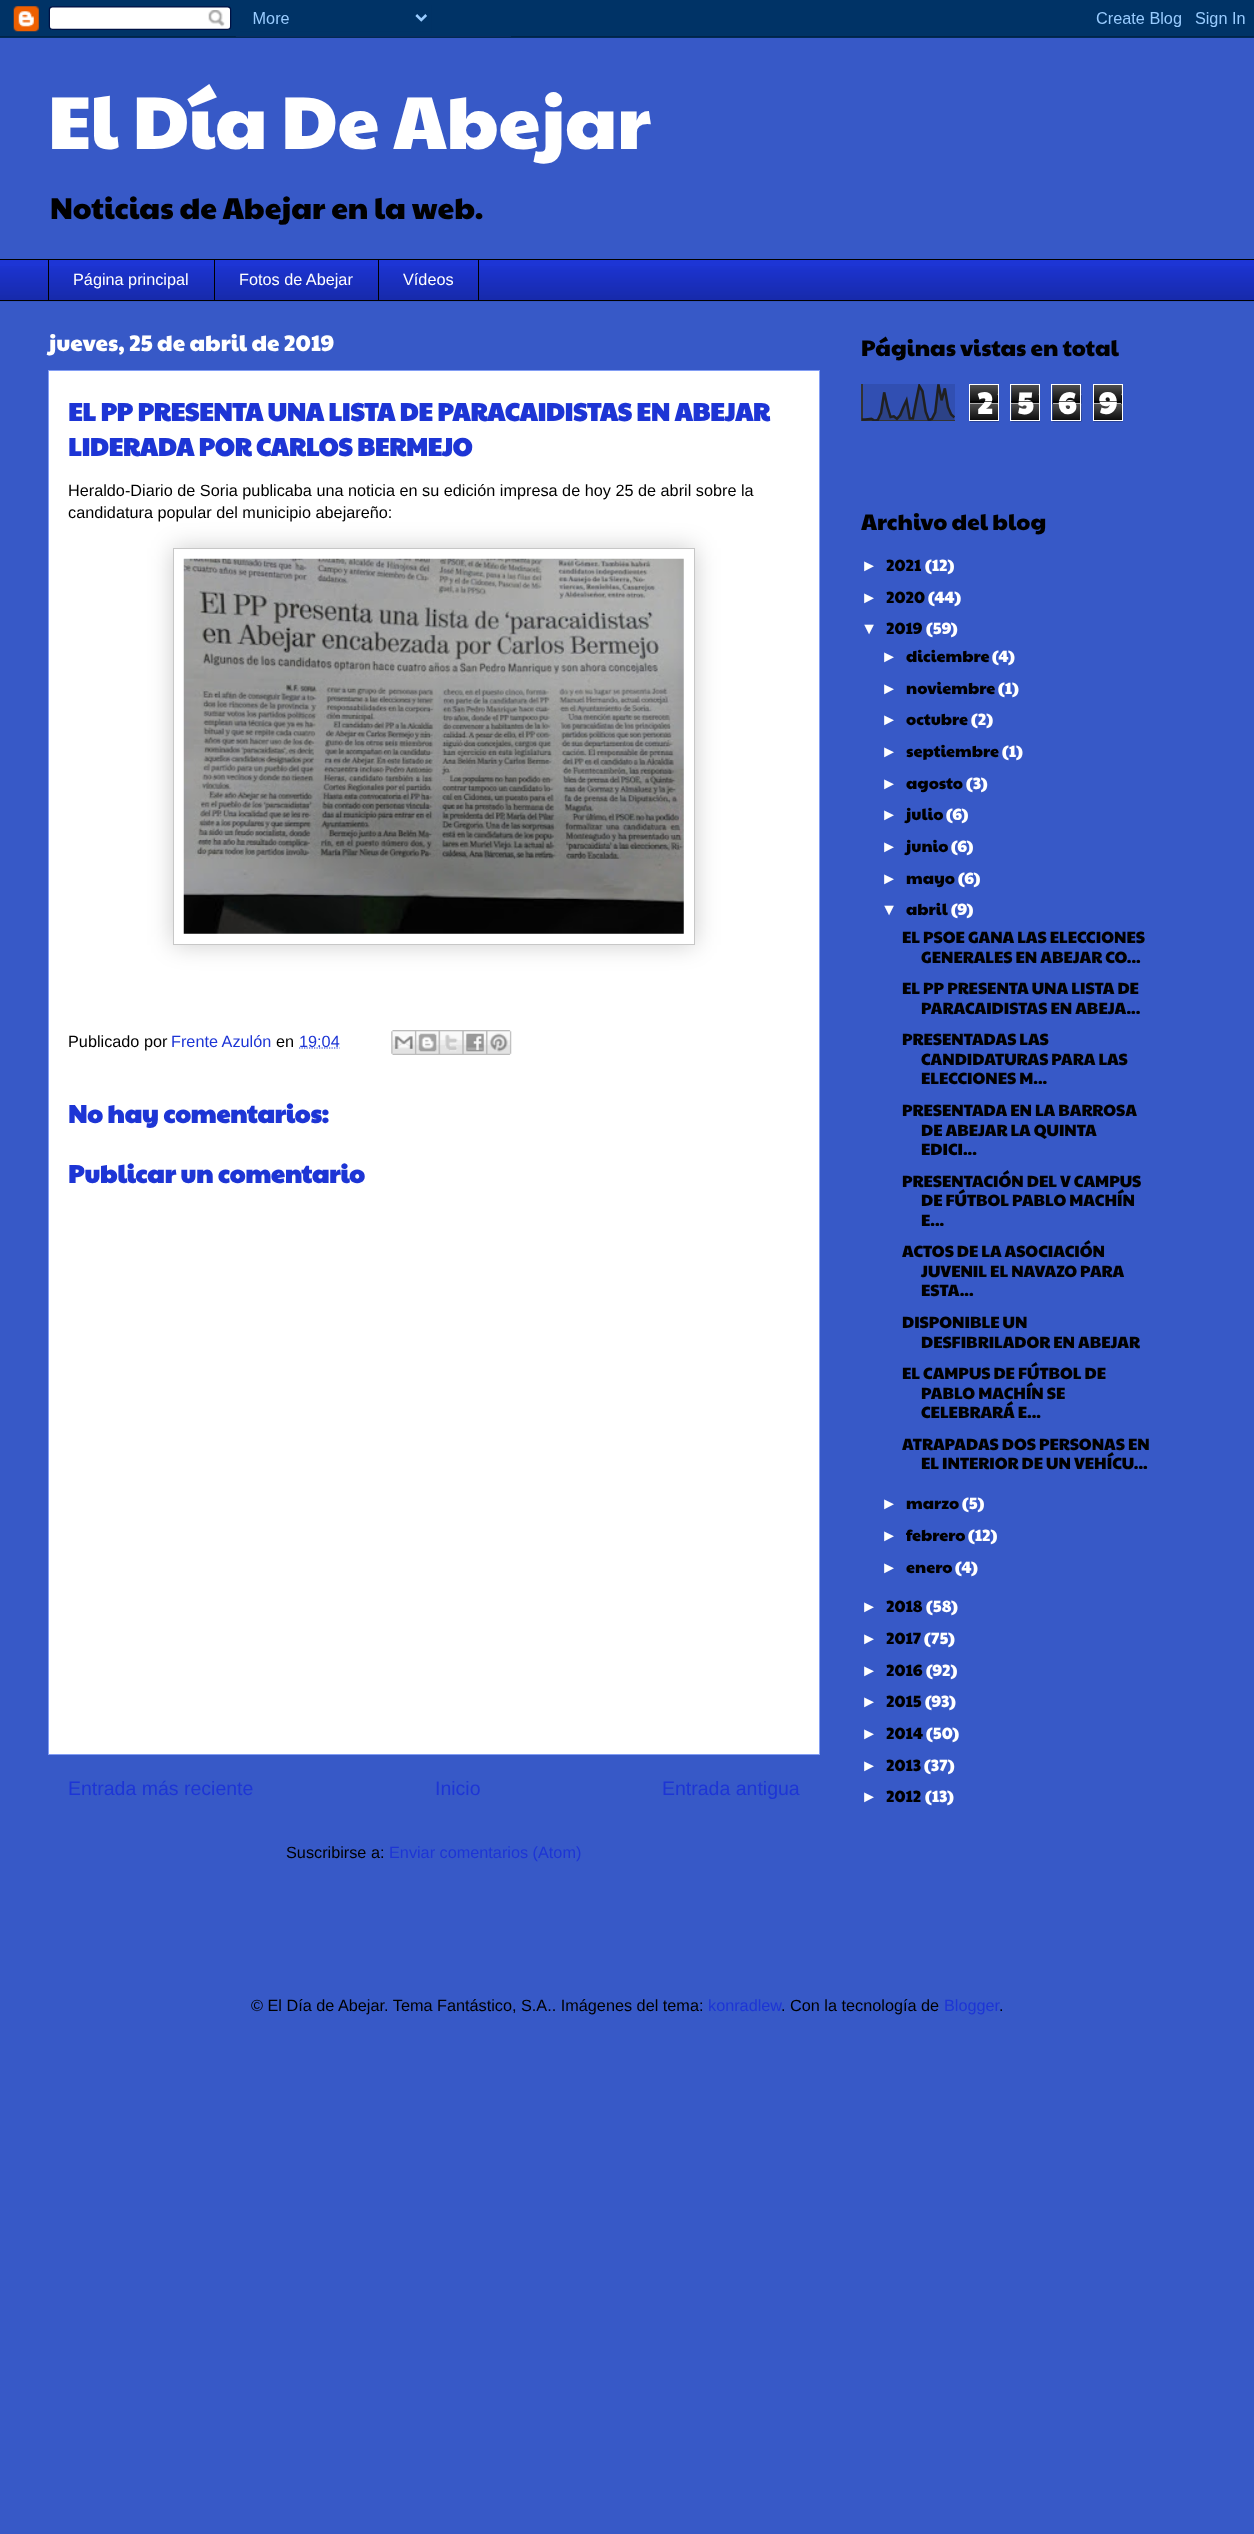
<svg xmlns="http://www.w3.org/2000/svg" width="1254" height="2534">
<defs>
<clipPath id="clip1"><path d="M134 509h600v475h-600zm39 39h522v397h-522z" clip-rule="evenodd"/></clipPath>
</defs>
<rect width="100%" height="100%" fill="#3759c7"/>
<image x="0" y="0" width="1254" height="38" href="media/1.png"/>
<text x="48" y="149" style="font-family:Paytone One;font-size:75px;fill:#fff">El Día De Abejar</text>
<text x="50" y="219" style="font-family:Paytone One;font-size:30px;fill:#000">Noticias de Abejar en la web.</text>
<rect y="260" width="1254" height="40" fill="#1d35d5"/>
<image x="0" y="266" width="1254" height="36" href="media/2.png"/>
<rect y="259" width="1254" height="1" fill="#000"/>
<rect x="48" y="259" width="1" height="42" fill="#000"/>
<text x="73" y="285" style="font-family:Liberation Sans;font-size:16.25px;fill:#fff">Página principal</text>
<rect x="214" y="259" width="1" height="42" fill="#000"/>
<text x="239" y="285" style="font-family:Liberation Sans;font-size:16.25px;fill:#fff">Fotos de Abejar</text>
<rect x="378.5" y="259.5" width="100" height="41" fill="none" stroke="#000"/>
<text x="403" y="285" style="font-family:Liberation Sans;font-size:16.25px;fill:#fff">Vídeos</text>
<rect y="300" width="1254" height="1" fill="#000"/>
<rect x="48.5" y="370.5" width="771" height="1384" fill="#fff" stroke="#829df4"/>
<text x="49" y="351" style="font-family:Paytone One;font-size:22.5px;fill:#fff">jueves, 25 de abril de 2019</text>
<text x="68" y="421" style="font-family:Paytone One;font-size:25px;font-weight:bold;fill:#1d35d5">EL PP PRESENTA UNA LISTA DE PARACAIDISTAS EN ABEJAR</text>
<text x="68" y="456" style="font-family:Paytone One;font-size:25px;font-weight:bold;fill:#1d35d5">LIDERADA POR CARLOS BERMEJO</text>
<text x="68" y="496" style="font-family:Liberation Sans;font-size:16.25px;fill:#000">Heraldo-Diario de Soria publicaba una noticia en su edición impresa de hoy 25 de abril sobre la</text>
<text x="68" y="518" style="font-family:Liberation Sans;font-size:16.25px;fill:#000">candidatura popular del municipio abejareño:</text>
<g clip-path="url(#clip1)">
<rect x="173" y="548" width="522" height="397" fill="#00000033" filter="blur(12.5px)"/>
</g>
<rect x="173.5" y="548.5" width="521" height="396" fill="none" stroke="#c7c7c7"/>
<image x="183" y="558" width="501" height="376" href="media/3.png"/>
<text x="68" y="1047" style="font-family:Liberation Sans;font-size:16.25px;fill:#000">Publicado por</text>
<text x="171" y="1047" style="font-family:Liberation Sans;font-size:16.25px;fill:#1d35d5">Frente Azulón</text>
<text x="276" y="1047" style="font-family:Liberation Sans;font-size:16.25px;fill:#000">en</text>
<path d="M299 1048h40.5" fill="none" stroke="#1d35d5" stroke-width="1.2" stroke-dasharray="1.25 1.25"/>
<text x="299" y="1047" style="font-family:Liberation Sans;font-size:16.25px;fill:#1d35d5">19:04</text>
<image x="391" y="1030" width="24" height="25" href="media/4.png"/>
<image x="415" y="1030" width="24" height="25" href="media/5.png"/>
<image x="438" y="1030" width="25" height="25" href="media/6.png"/>
<image x="462" y="1030" width="25" height="25" href="media/7.png"/>
<image x="486" y="1030" width="26" height="25" href="media/8.png"/>
<text x="68" y="1123" style="font-family:Paytone One;font-size:25px;font-weight:bold;fill:#1d35d5">No hay comentarios:</text>
<text x="68" y="1183" style="font-family:Paytone One;font-size:25px;font-weight:bold;fill:#1d35d5">Publicar un comentario</text>
<text x="68" y="1795" style="font-family:Liberation Sans;font-size:19.5px;fill:#1d35d5">Entrada más reciente</text>
<text x="435" y="1795" style="font-family:Liberation Sans;font-size:19.5px;fill:#1d35d5">Inicio</text>
<text x="662" y="1795" style="font-family:Liberation Sans;font-size:19.5px;fill:#1d35d5">Entrada antigua</text>
<text x="286" y="1858" style="font-family:Liberation Sans;font-size:16.25px;fill:#000">Suscribirse a:</text>
<text x="389" y="1858" style="font-family:Liberation Sans;font-size:16.25px;fill:#1d35d5">Enviar comentarios (Atom)</text>
<text x="861" y="356" style="font-family:Paytone One;font-size:22.5px;fill:#000">Páginas vistas en total</text>
<image x="861" y="384" width="94" height="37" href="media/9.png"/>
<image x="970" y="385" width="29" height="37" href="media/10.png"/>
<rect x="969.5" y="384.5" width="29" height="36" fill="none" stroke="#fff"/>
<text x="977" y="414" style="font-family:Paytone One;font-size:30px;font-weight:bold;fill:#fff">2</text>
<rect x="970" y="401" width="28" height="1" fill="#000000a6"/>
<rect x="970" y="403" width="28" height="1" fill="#ffffffa6"/>
<image x="1011" y="385" width="29" height="37" href="media/11.png"/>
<rect x="1010.5" y="384.5" width="29" height="36" fill="none" stroke="#fff"/>
<text x="1017" y="414" style="font-family:Paytone One;font-size:30px;font-weight:bold;fill:#fff">5</text>
<rect x="1011" y="401" width="28" height="1" fill="#000000a6"/>
<rect x="1011" y="403" width="28" height="1" fill="#ffffffa6"/>
<image x="1052" y="385" width="30" height="37" href="media/12.png"/>
<rect x="1051.5" y="384.5" width="29" height="36" fill="none" stroke="#fff"/>
<text x="1058" y="414" style="font-family:Paytone One;font-size:30px;font-weight:bold;fill:#fff">6</text>
<rect x="1053" y="401" width="27" height="1" fill="#000000a6"/>
<rect x="1053" y="403" width="27" height="1" fill="#ffffffa6"/>
<image x="1093" y="385" width="30" height="37" href="media/13.png"/>
<rect x="1093.5" y="384.5" width="29" height="36" fill="none" stroke="#fff"/>
<text x="1099" y="414" style="font-family:Paytone One;font-size:30px;font-weight:bold;fill:#fff">9</text>
<rect x="1094" y="401" width="27" height="1" fill="#000000a6"/>
<rect x="1094" y="403" width="27" height="1" fill="#ffffffa6"/>
<text x="861" y="530" style="font-family:Paytone One;font-size:22.5px;fill:#000">Archivo del blog</text>
<text x="861" y="571" style="font-family:Liberation Sans;font-size:16.25px;fill:#fff">►</text>
<text x="886" y="571" style="font-family:Paytone One;font-size:16.25px;fill:#000">2021</text>
<text x="925" y="571" style="font-family:Paytone One;font-size:16.25px;fill:#fff">(12)</text>
<text x="861" y="603" style="font-family:Liberation Sans;font-size:16.25px;fill:#fff">►</text>
<text x="886" y="603" style="font-family:Paytone One;font-size:16.25px;fill:#000">2020</text>
<text x="928" y="603" style="font-family:Paytone One;font-size:16.25px;fill:#fff">(44)</text>
<text x="861" y="634" style="font-family:Liberation Sans;font-size:16.25px;fill:#fff">▼</text>
<text x="886" y="634" style="font-family:Paytone One;font-size:16.25px;fill:#000">2019</text>
<text x="926" y="634" style="font-family:Paytone One;font-size:16.25px;fill:#fff">(59)</text>
<text x="881" y="662" style="font-family:Liberation Sans;font-size:16.25px;fill:#fff">►</text>
<text x="906" y="662" style="font-family:Paytone One;font-size:16.25px;fill:#000">diciembre</text>
<text x="992" y="662" style="font-family:Paytone One;font-size:16.25px;fill:#fff">(4)</text>
<text x="881" y="694" style="font-family:Liberation Sans;font-size:16.25px;fill:#fff">►</text>
<text x="906" y="694" style="font-family:Paytone One;font-size:16.25px;fill:#000">noviembre</text>
<text x="998" y="694" style="font-family:Paytone One;font-size:16.25px;fill:#fff">(1)</text>
<text x="881" y="725" style="font-family:Liberation Sans;font-size:16.25px;fill:#fff">►</text>
<text x="906" y="725" style="font-family:Paytone One;font-size:16.25px;fill:#000">octubre</text>
<text x="971" y="725" style="font-family:Paytone One;font-size:16.25px;fill:#fff">(2)</text>
<text x="881" y="757" style="font-family:Liberation Sans;font-size:16.25px;fill:#fff">►</text>
<text x="906" y="757" style="font-family:Paytone One;font-size:16.25px;fill:#000">septiembre</text>
<text x="1002" y="757" style="font-family:Paytone One;font-size:16.25px;fill:#fff">(1)</text>
<text x="881" y="789" style="font-family:Liberation Sans;font-size:16.25px;fill:#fff">►</text>
<text x="906" y="789" style="font-family:Paytone One;font-size:16.25px;fill:#000">agosto</text>
<text x="966" y="789" style="font-family:Paytone One;font-size:16.25px;fill:#fff">(3)</text>
<text x="881" y="820" style="font-family:Liberation Sans;font-size:16.25px;fill:#fff">►</text>
<text x="906" y="820" style="font-family:Paytone One;font-size:16.25px;fill:#000">julio</text>
<text x="946" y="820" style="font-family:Paytone One;font-size:16.25px;fill:#fff">(6)</text>
<text x="881" y="852" style="font-family:Liberation Sans;font-size:16.25px;fill:#fff">►</text>
<text x="906" y="852" style="font-family:Paytone One;font-size:16.25px;fill:#000">junio</text>
<text x="951" y="852" style="font-family:Paytone One;font-size:16.25px;fill:#fff">(6)</text>
<text x="881" y="884" style="font-family:Liberation Sans;font-size:16.25px;fill:#fff">►</text>
<text x="906" y="884" style="font-family:Paytone One;font-size:16.25px;fill:#000">mayo</text>
<text x="958" y="884" style="font-family:Paytone One;font-size:16.25px;fill:#fff">(6)</text>
<text x="881" y="915" style="font-family:Liberation Sans;font-size:16.25px;fill:#fff">▼</text>
<text x="906" y="915" style="font-family:Paytone One;font-size:16.25px;fill:#000">abril</text>
<text x="951" y="915" style="font-family:Paytone One;font-size:16.25px;fill:#fff">(9)</text>
<text x="902" y="943" style="font-family:Paytone One;font-size:16.25px;fill:#000">EL PSOE GANA LAS ELECCIONES</text>
<text x="921" y="963" style="font-family:Paytone One;font-size:16.25px;fill:#000">GENERALES EN ABEJAR CO...</text>
<text x="902" y="994" style="font-family:Paytone One;font-size:16.25px;fill:#000">EL PP PRESENTA UNA LISTA DE</text>
<text x="921" y="1014" style="font-family:Paytone One;font-size:16.25px;fill:#000">PARACAIDISTAS EN ABEJA...</text>
<text x="902" y="1045" style="font-family:Paytone One;font-size:16.25px;fill:#000">PRESENTADAS LAS</text>
<text x="921" y="1065" style="font-family:Paytone One;font-size:16.25px;fill:#000">CANDIDATURAS PARA LAS</text>
<text x="921" y="1084" style="font-family:Paytone One;font-size:16.25px;fill:#000">ELECCIONES M...</text>
<text x="902" y="1116" style="font-family:Paytone One;font-size:16.25px;fill:#000">PRESENTADA EN LA BARROSA</text>
<text x="921" y="1136" style="font-family:Paytone One;font-size:16.25px;fill:#000">DE ABEJAR LA QUINTA</text>
<text x="921" y="1155" style="font-family:Paytone One;font-size:16.25px;fill:#000">EDICI...</text>
<text x="902" y="1187" style="font-family:Paytone One;font-size:16.25px;fill:#000">PRESENTACIÓN DEL V CAMPUS</text>
<text x="921" y="1206" style="font-family:Paytone One;font-size:16.25px;fill:#000">DE FÚTBOL PABLO MACHÍN</text>
<text x="921" y="1226" style="font-family:Paytone One;font-size:16.25px;fill:#000">E...</text>
<text x="902" y="1257" style="font-family:Paytone One;font-size:16.25px;fill:#000">ACTOS DE LA ASOCIACIÓN</text>
<text x="921" y="1277" style="font-family:Paytone One;font-size:16.25px;fill:#000">JUVENIL EL NAVAZO PARA</text>
<text x="921" y="1296" style="font-family:Paytone One;font-size:16.25px;fill:#000">ESTA...</text>
<text x="902" y="1328" style="font-family:Paytone One;font-size:16.25px;fill:#000">DISPONIBLE UN</text>
<text x="921" y="1348" style="font-family:Paytone One;font-size:16.25px;fill:#000">DESFIBRILADOR EN ABEJAR</text>
<text x="902" y="1379" style="font-family:Paytone One;font-size:16.25px;fill:#000">EL CAMPUS DE FÚTBOL DE</text>
<text x="921" y="1399" style="font-family:Paytone One;font-size:16.25px;fill:#000">PABLO MACHÍN SE</text>
<text x="921" y="1418" style="font-family:Paytone One;font-size:16.25px;fill:#000">CELEBRARÁ E...</text>
<text x="902" y="1450" style="font-family:Paytone One;font-size:16.25px;fill:#000">ATRAPADAS DOS PERSONAS EN</text>
<text x="921" y="1469" style="font-family:Paytone One;font-size:16.25px;fill:#000">EL INTERIOR DE UN VEHÍCU...</text>
<text x="881" y="1509" style="font-family:Liberation Sans;font-size:16.25px;fill:#fff">►</text>
<text x="906" y="1509" style="font-family:Paytone One;font-size:16.25px;fill:#000">marzo</text>
<text x="962" y="1509" style="font-family:Paytone One;font-size:16.25px;fill:#fff">(5)</text>
<text x="881" y="1541" style="font-family:Liberation Sans;font-size:16.25px;fill:#fff">►</text>
<text x="906" y="1541" style="font-family:Paytone One;font-size:16.25px;fill:#000">febrero</text>
<text x="968" y="1541" style="font-family:Paytone One;font-size:16.25px;fill:#fff">(12)</text>
<text x="881" y="1573" style="font-family:Liberation Sans;font-size:16.25px;fill:#fff">►</text>
<text x="906" y="1573" style="font-family:Paytone One;font-size:16.25px;fill:#000">enero</text>
<text x="955" y="1573" style="font-family:Paytone One;font-size:16.25px;fill:#fff">(4)</text>
<text x="861" y="1612" style="font-family:Liberation Sans;font-size:16.25px;fill:#fff">►</text>
<text x="886" y="1612" style="font-family:Paytone One;font-size:16.25px;fill:#000">2018</text>
<text x="926" y="1612" style="font-family:Paytone One;font-size:16.25px;fill:#fff">(58)</text>
<text x="861" y="1644" style="font-family:Liberation Sans;font-size:16.25px;fill:#fff">►</text>
<text x="886" y="1644" style="font-family:Paytone One;font-size:16.25px;fill:#000">2017</text>
<text x="924" y="1644" style="font-family:Paytone One;font-size:16.25px;fill:#fff">(75)</text>
<text x="861" y="1676" style="font-family:Liberation Sans;font-size:16.25px;fill:#fff">►</text>
<text x="886" y="1676" style="font-family:Paytone One;font-size:16.25px;fill:#000">2016</text>
<text x="926" y="1676" style="font-family:Paytone One;font-size:16.25px;fill:#fff">(92)</text>
<text x="861" y="1707" style="font-family:Liberation Sans;font-size:16.25px;fill:#fff">►</text>
<text x="886" y="1707" style="font-family:Paytone One;font-size:16.25px;fill:#000">2015</text>
<text x="925" y="1707" style="font-family:Paytone One;font-size:16.25px;fill:#fff">(93)</text>
<text x="861" y="1739" style="font-family:Liberation Sans;font-size:16.25px;fill:#fff">►</text>
<text x="886" y="1739" style="font-family:Paytone One;font-size:16.25px;fill:#000">2014</text>
<text x="926" y="1739" style="font-family:Paytone One;font-size:16.25px;fill:#fff">(50)</text>
<text x="861" y="1771" style="font-family:Liberation Sans;font-size:16.25px;fill:#fff">►</text>
<text x="886" y="1771" style="font-family:Paytone One;font-size:16.25px;fill:#000">2013</text>
<text x="924" y="1771" style="font-family:Paytone One;font-size:16.25px;fill:#fff">(37)</text>
<text x="861" y="1802" style="font-family:Liberation Sans;font-size:16.25px;fill:#fff">►</text>
<text x="886" y="1802" style="font-family:Paytone One;font-size:16.25px;fill:#000">2012</text>
<text x="925" y="1802" style="font-family:Paytone One;font-size:16.25px;fill:#fff">(13)</text>
<text x="251" y="2011" style="font-family:Liberation Sans;font-size:16.25px;fill:#000">© El Día de Abejar. Tema Fantástico, S.A.. Imágenes del tema:</text>
<text x="708" y="2011" style="font-family:Liberation Sans;font-size:16.25px;fill:#1d35d5">konradlew</text>
<text x="781" y="2011" style="font-family:Liberation Sans;font-size:16.25px;fill:#000">. Con la tecnología de</text>
<text x="944" y="2011" style="font-family:Liberation Sans;font-size:16.25px;fill:#1d35d5">Blogger</text>
<text x="999" y="2011" style="font-family:Liberation Sans;font-size:16.25px;fill:#000">.</text>
</svg>
